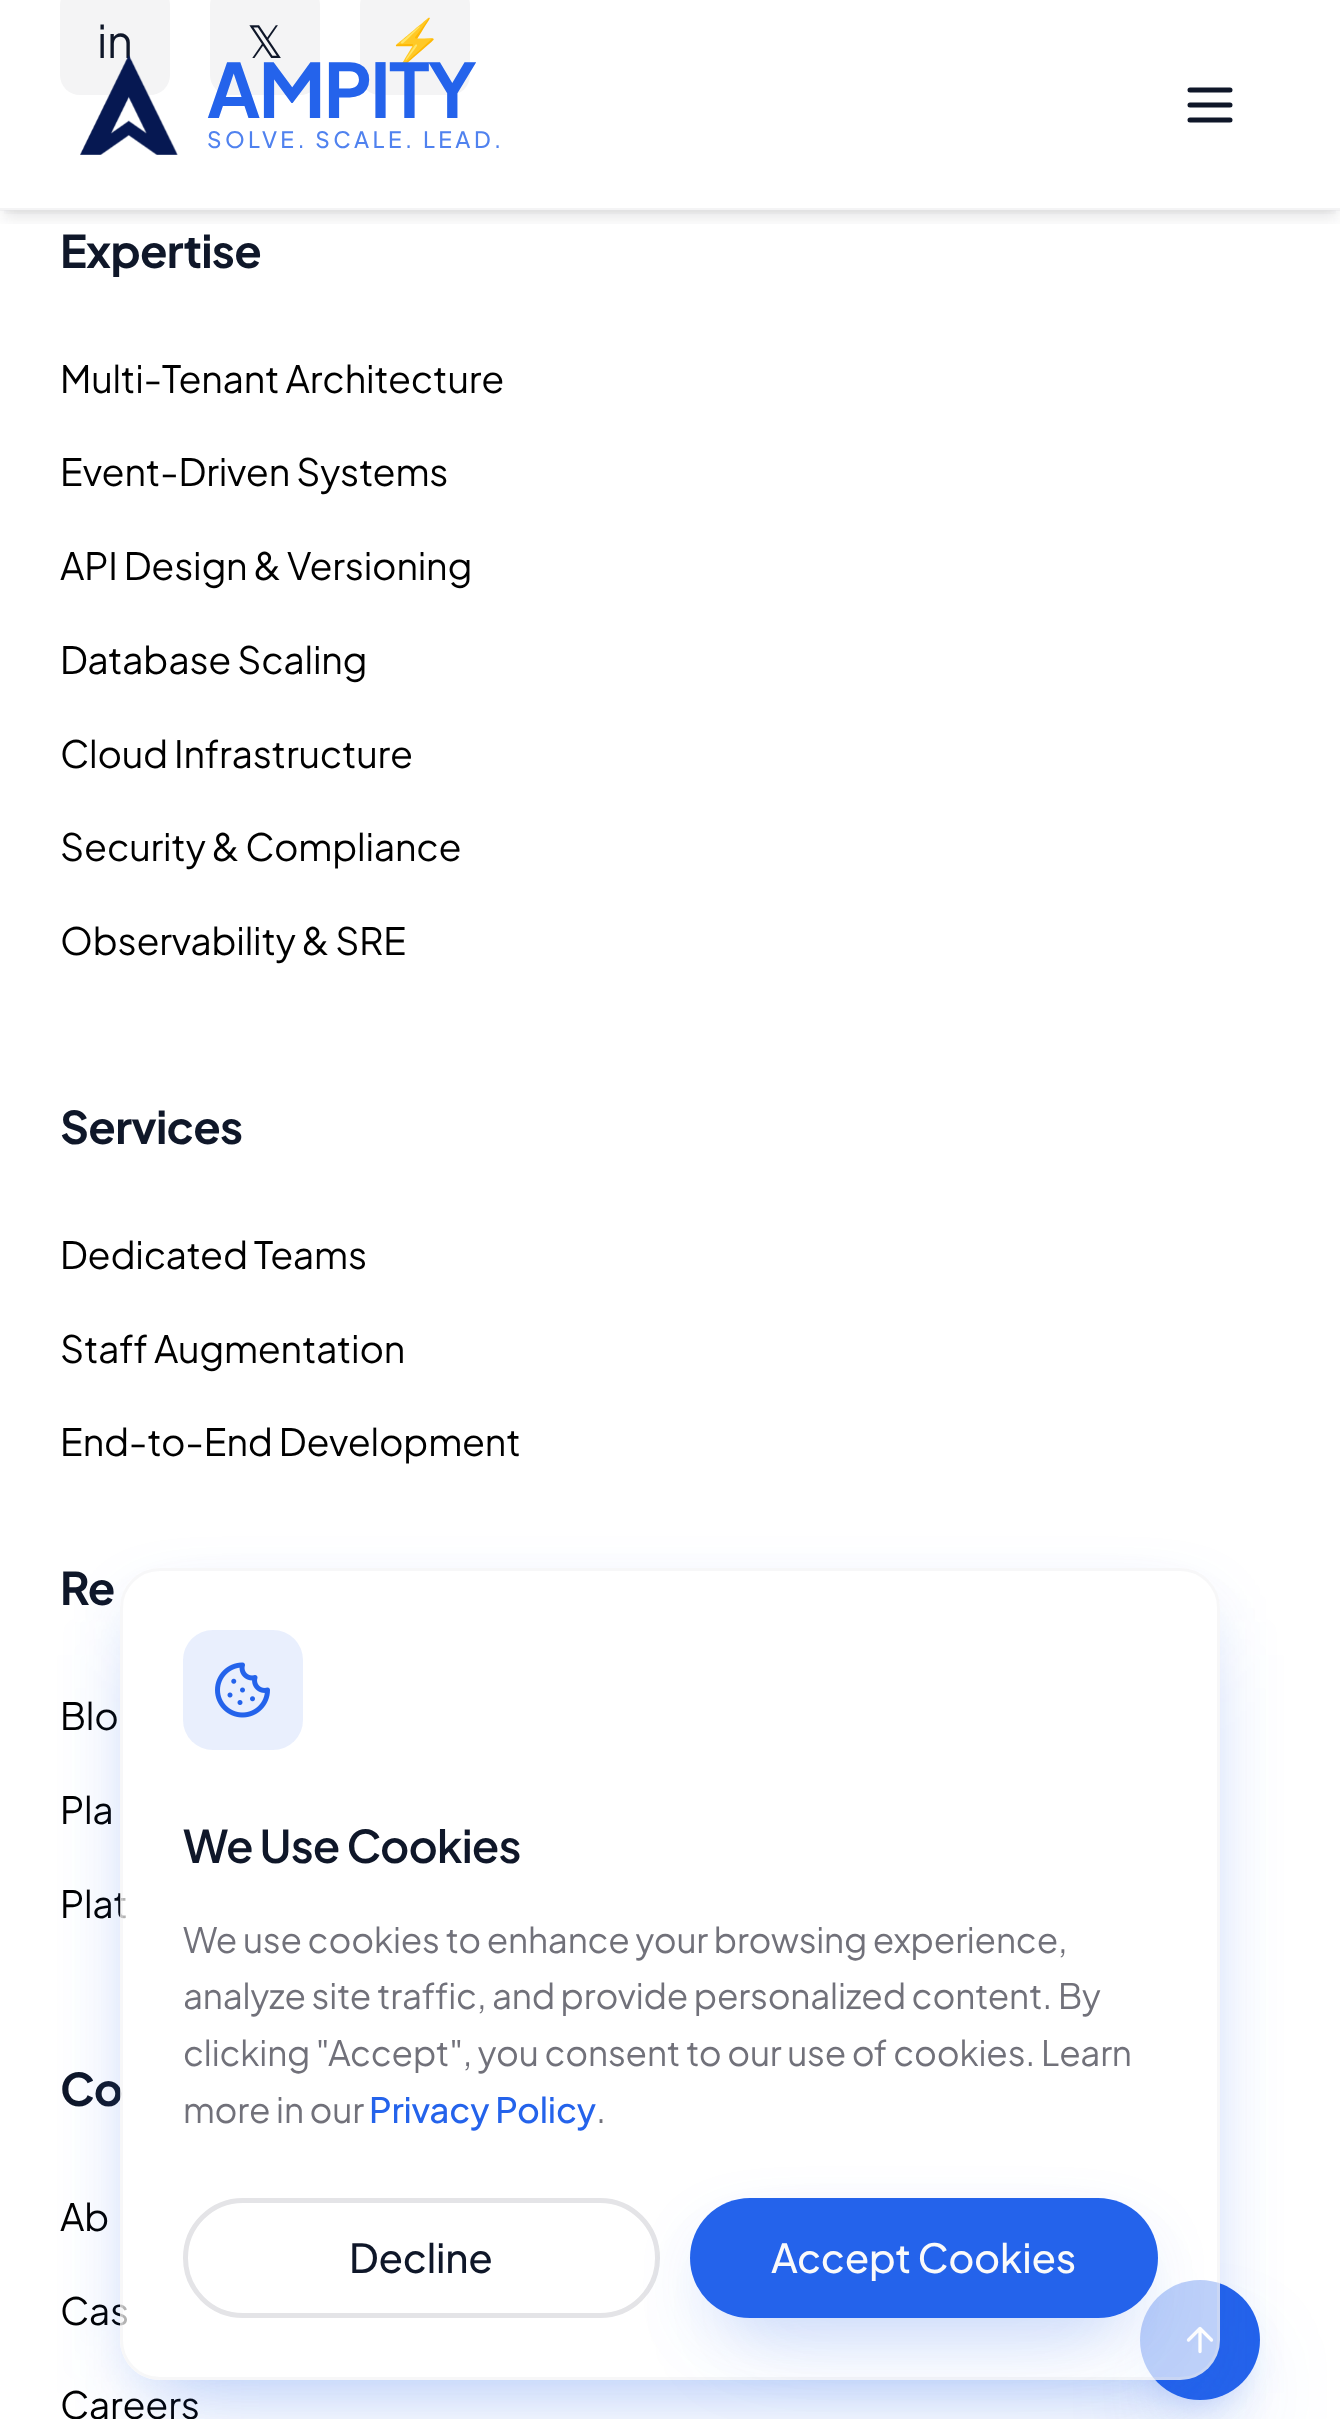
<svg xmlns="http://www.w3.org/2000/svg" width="1340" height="2419">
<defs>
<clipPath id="clip1"><rect x="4" y="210" width="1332" height="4"/></clipPath>
<clipPath id="clip2"><rect x="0" y="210" width="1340" height="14"/></clipPath>
<clipPath id="clip3"><path d="M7 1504h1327v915h-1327zm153 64h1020c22 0 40 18 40 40v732c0 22-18 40-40 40h-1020c-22 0-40-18-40-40v-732c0-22 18-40 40-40z" clip-rule="evenodd"/></clipPath>
<clipPath id="clip4"><path d="M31 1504h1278v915h-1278zm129 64h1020c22 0 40 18 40 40v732c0 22-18 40-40 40h-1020c-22 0-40-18-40-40v-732c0-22 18-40 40-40z" clip-rule="evenodd"/></clipPath>
</defs>
<rect width="100%" height="100%" fill="#fff"/>
<rect x="60" y="-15" width="110" height="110" rx="20" fill="#f4f4f5"/>
<text x="97" y="58" style="font-family:Plus Jakarta Sans;font-size:45px;letter-spacing:-0.2px;fill:#0f1729">in</text>
<rect x="210" y="-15" width="110" height="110" rx="20" fill="#f4f4f5"/>
<text x="247" y="58" style="font-family:DejaVu Sans;font-size:45px;letter-spacing:-0.2px;fill:#0f1729">𝕏</text>
<rect x="360" y="-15" width="110" height="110" rx="20" fill="#f4f4f5"/>
<text x="387" y="58" style="font-family:Noto Color Emoji;font-size:45px;letter-spacing:-0.2px;fill:#0f1729">⚡</text>
<text x="60" y="268" style="font-family:Plus Jakarta Sans;font-size:45px;font-weight:bold;letter-spacing:-0.75px;fill:#0f1729">Expertise</text>
<text x="60" y="393" style="font-family:Plus Jakarta Sans;font-size:37.5px;letter-spacing:-0.2px;fill:#000">Multi-Tenant Architecture</text>
<text x="60" y="486" style="font-family:Plus Jakarta Sans;font-size:37.5px;letter-spacing:-0.2px;fill:#000">Event-Driven Systems</text>
<text x="60" y="580" style="font-family:Plus Jakarta Sans;font-size:37.5px;letter-spacing:-0.2px;fill:#000">API Design &amp; Versioning</text>
<text x="60" y="674" style="font-family:Plus Jakarta Sans;font-size:37.5px;letter-spacing:-0.2px;fill:#000">Database Scaling</text>
<text x="60" y="768" style="font-family:Plus Jakarta Sans;font-size:37.5px;letter-spacing:-0.2px;fill:#000">Cloud Infrastructure</text>
<text x="60" y="861" style="font-family:Plus Jakarta Sans;font-size:37.5px;letter-spacing:-0.2px;fill:#000">Security &amp; Compliance</text>
<text x="60" y="955" style="font-family:Plus Jakarta Sans;font-size:37.5px;letter-spacing:-0.2px;fill:#000">Observability &amp; SRE</text>
<text x="60" y="1144" style="font-family:Plus Jakarta Sans;font-size:45px;font-weight:bold;letter-spacing:-0.75px;fill:#0f1729">Services</text>
<text x="60" y="1269" style="font-family:Plus Jakarta Sans;font-size:37.5px;letter-spacing:-0.2px;fill:#000">Dedicated Teams</text>
<text x="60" y="1363" style="font-family:Plus Jakarta Sans;font-size:37.5px;letter-spacing:-0.2px;fill:#000">Staff Augmentation</text>
<text x="60" y="1456" style="font-family:Plus Jakarta Sans;font-size:37.5px;letter-spacing:-0.2px;fill:#000">End-to-End Development</text>
<text x="60" y="1605" style="font-family:Plus Jakarta Sans;font-size:45px;font-weight:bold;letter-spacing:-0.75px;fill:#0f1729">Re</text>
<text x="60" y="1730" style="font-family:Plus Jakarta Sans;font-size:37.5px;letter-spacing:-0.2px;fill:#000">Blo</text>
<text x="60" y="1824" style="font-family:Plus Jakarta Sans;font-size:37.5px;letter-spacing:-0.2px;fill:#000">Pla</text>
<text x="60" y="1918" style="font-family:Plus Jakarta Sans;font-size:37.5px;letter-spacing:-0.2px;fill:#000">Plat</text>
<text x="60" y="2106" style="font-family:Plus Jakarta Sans;font-size:45px;font-weight:bold;letter-spacing:-0.75px;fill:#0f1729">Co</text>
<text x="60" y="2231" style="font-family:Plus Jakarta Sans;font-size:37.5px;letter-spacing:-0.2px;fill:#000">Ab</text>
<text x="60" y="2325" style="font-family:Plus Jakarta Sans;font-size:37.5px;letter-spacing:-0.2px;fill:#000">Cas</text>
<text x="60" y="2419" style="font-family:Plus Jakarta Sans;font-size:37.5px;letter-spacing:-0.2px;fill:#000">Careers</text>
<g clip-path="url(#clip1)">
<rect x="5" y="10" width="1330" height="200" fill="#18181b1a" filter="blur(5px)"/>
</g>
<g clip-path="url(#clip2)">
<rect x="3" y="13" width="1335" height="205" fill="#18181b1a" filter="blur(7.5px)"/>
</g>
<rect y="208" width="1340" height="3" fill="#e4e4e766"/>
<image x="80" y="55" width="98" height="100" href="media/1.png"/>
<text x="207" y="118" style="font-family:Plus Jakarta Sans;font-size:75px;font-weight:bold;letter-spacing:-2px;fill:#2463eb">AMPITY</text>
<text x="207" y="148" style="font-family:Plus Jakarta Sans;font-size:22.5px;font-weight:500;letter-spacing:3.4px;fill:#5082ef">SOLVE. SCALE. LEAD.</text>
<path d="M1190 105h40m-40-15h40m-40 30h40" fill="none" stroke="#0f1729" stroke-width="5" stroke-linecap="round" stroke-linejoin="round"/>
<rect x="1160" y="2320" width="80" height="80" rx="40" fill="#2463eb4d" filter="blur(20px)"/>
<rect x="1165" y="2355" width="70" height="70" rx="35" fill="#2463eb40" filter="blur(50px)"/>
<circle cx="1200" cy="2340" r="60" fill="#2463eb"/>
<path d="M1188.5 2340l11.5-11.5l11.5 11.5m-11.5 11.5v-23" fill="none" stroke="#fafafa" stroke-width="3.3" stroke-linecap="round" stroke-linejoin="round"/>
<g clip-path="url(#clip3)">
<rect x="158" y="1655" width="1025" height="738" rx="2.5" fill="#2463eb26" filter="blur(50px)"/>
</g>
<g clip-path="url(#clip4)">
<rect x="145" y="1618" width="1050" height="762" rx="15" fill="#2463eb4d" filter="blur(37.5px)"/>
</g>
<rect x="120" y="1568" width="1100" height="812" rx="40" fill="#ffffffb3"/>
<rect x="121.5" y="1569.5" width="1097" height="809" rx="38.5" fill="none" stroke="#e4e4e74d" stroke-width="3"/>
<rect x="183" y="1630" width="120" height="120" rx="30" fill="#2463eb1a"/>
<image x="215" y="1662" width="55" height="56" href="media/2.png"/>
<text x="183" y="1863" style="font-family:Plus Jakarta Sans;font-size:45px;font-weight:600;letter-spacing:-0.9px;fill:#0f1729">We Use Cookies</text>
<text x="183" y="1953" style="font-family:Plus Jakarta Sans;font-size:35px;letter-spacing:-0.18px;fill:#71717a">We use cookies to enhance your browsing experience,</text>
<text x="183" y="2009" style="font-family:Plus Jakarta Sans;font-size:35px;letter-spacing:-0.18px;fill:#71717a">analyze site traffic, and provide personalized content. By</text>
<text x="183" y="2066" style="font-family:Plus Jakarta Sans;font-size:35px;letter-spacing:-0.18px;fill:#71717a">clicking "Accept", you consent to our use of cookies. Learn</text>
<text x="183" y="2123" style="font-family:Plus Jakarta Sans;font-size:35px;letter-spacing:-0.18px;fill:#71717a">more in our</text>
<text x="369" y="2123" style="font-family:Plus Jakarta Sans;font-size:35px;font-weight:500;letter-spacing:-0.18px;fill:#2463eb">Privacy Policy</text>
<text x="596" y="2123" style="font-family:Plus Jakarta Sans;font-size:35px;letter-spacing:-0.18px;fill:#71717a">.</text>
<rect x="185.5" y="2200.5" width="472" height="115" rx="57.5" fill="none" stroke="#e4e4e7" stroke-width="5"/>
<text x="349" y="2273" style="font-family:Plus Jakarta Sans;font-size:40px;font-weight:500;letter-spacing:-0.2px;fill:#0f1729">Decline</text>
<rect x="728" y="2285" width="392" height="45" rx="22.5" fill="#2463eb26" filter="blur(50px)"/>
<rect x="715" y="2248" width="418" height="70" rx="35" fill="#2463eb4d" filter="blur(37.5px)"/>
<rect x="690" y="2198" width="468" height="120" rx="60" fill="#2463eb"/>
<text x="771" y="2273" style="font-family:Plus Jakarta Sans;font-size:40px;font-weight:500;letter-spacing:-0.2px;fill:#fafafa">Accept Cookies</text>
</svg>
